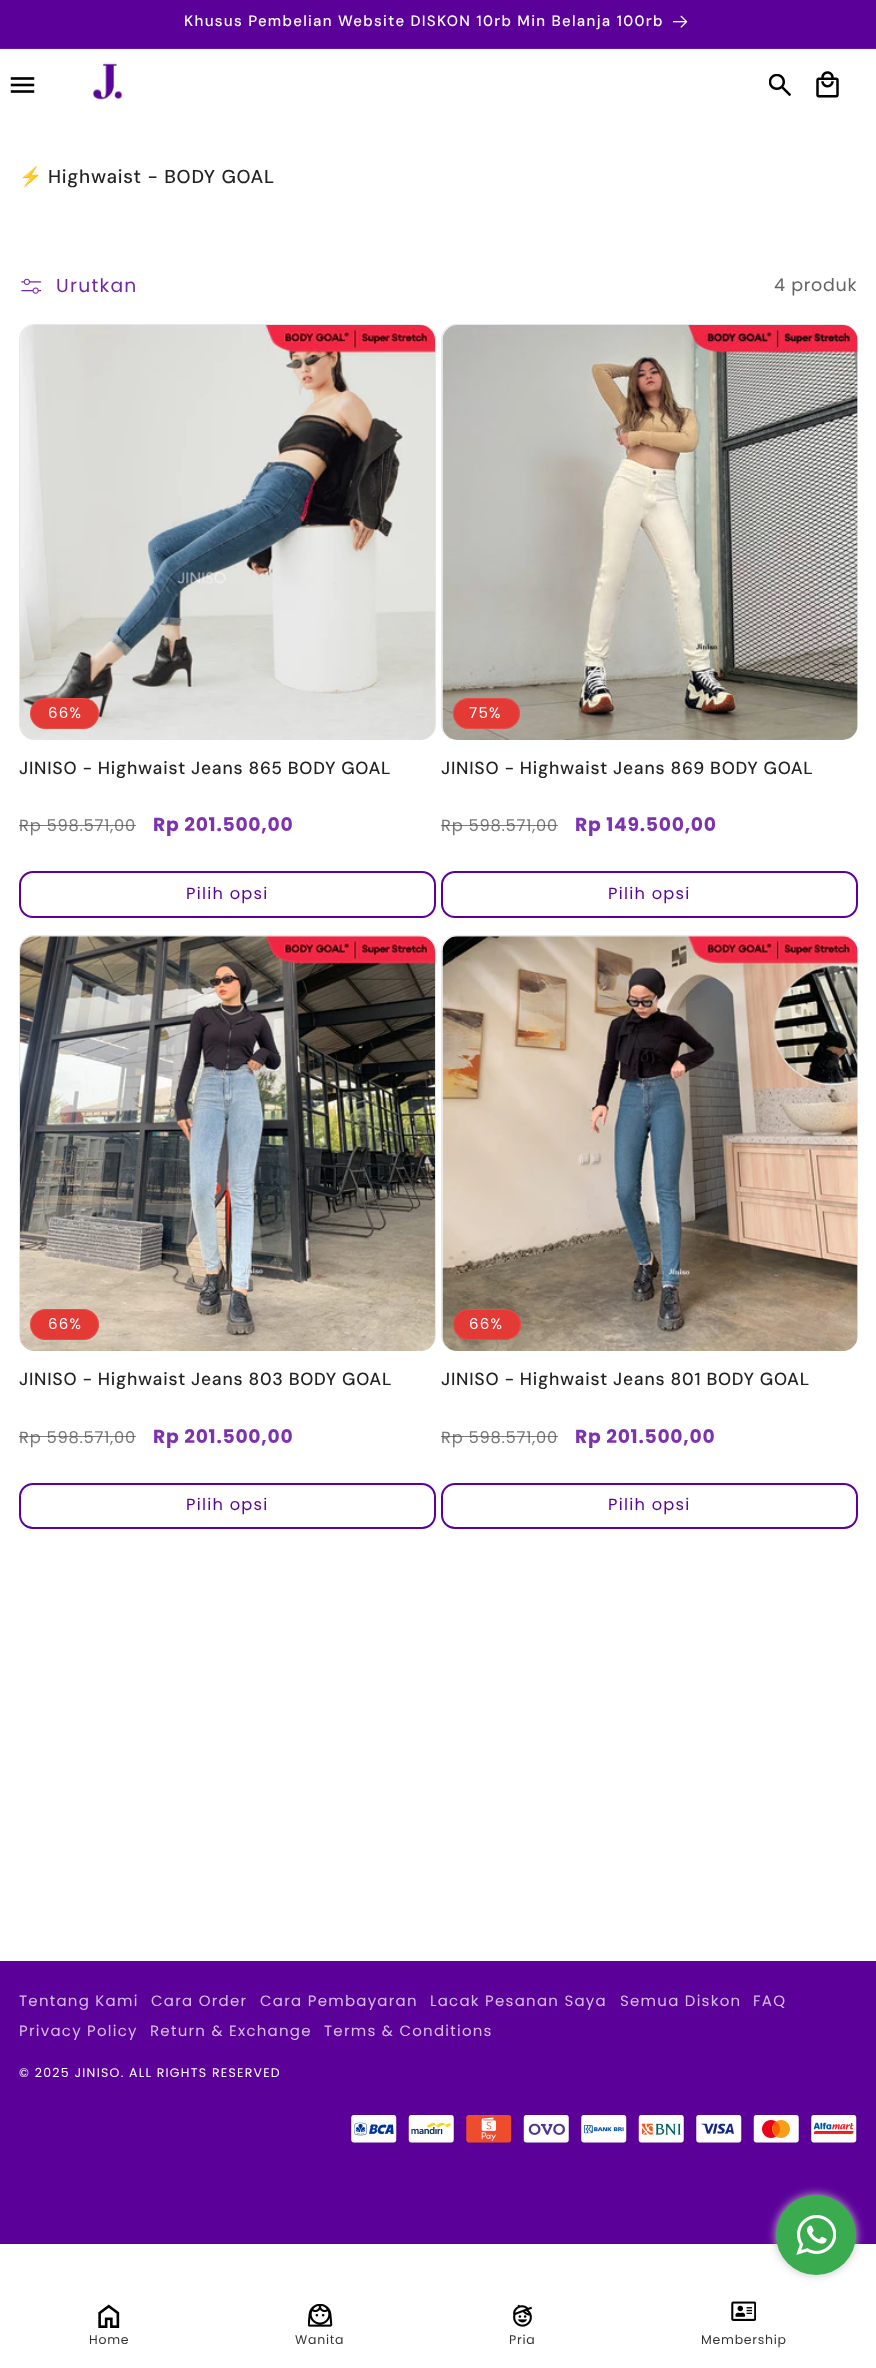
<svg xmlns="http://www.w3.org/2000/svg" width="876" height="2368">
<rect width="100%" height="100%" fill="#fff"/>
<rect width="876" height="48" fill="#5c009a"/>
<rect y="48" width="876" height="1" fill="#6914a2"/>
<text x="184" y="26" style="font-family:DM Sans;font-size:15px;font-weight:500;letter-spacing:1.25px;fill:#fff">Khusus Pembelian Website DISKON 10rb Min Belanja 100rb</text>
<image x="673" y="15" width="15" height="13" href="media/1.png"/>
<image x="10" y="77" width="25" height="16" href="media/2.png"/>
<image x="92" y="61" width="32" height="41" href="media/3.png"/>
<image x="769" y="74" width="22" height="22" href="media/4.png"/>
<image x="816" y="71" width="23" height="27" href="media/5.png"/>
<text x="19" y="183" style="font-family:Noto Color Emoji;font-size:18.75px;letter-spacing:0.75px;fill:#222">⚡</text>
<text x="48" y="183" style="font-family:DM Sans;font-size:18.75px;font-weight:500;letter-spacing:0.75px;fill:#222">Highwaist - BODY GOAL</text>
<image x="21" y="278" width="21" height="16" href="media/6.png"/>
<text x="56" y="292" style="font-family:Poppins;font-size:18.75px;letter-spacing:1.25px;fill:#7426a9">Urutkan</text>
<text x="774" y="291" style="font-family:Poppins;font-size:17.5px;letter-spacing:0.75px;fill:#646464">4 produk</text>
<rect x="19.5" y="324.5" width="416" height="415" rx="14.5" fill="#f3f3f3" stroke="#e5e7eb"/>
<image x="20" y="325" width="415" height="415" href="media/7.png"/>
<rect x="30" y="698" width="69" height="31" rx="15.5" fill="#e43a36"/>
<rect x="30.5" y="698.5" width="68" height="30" rx="15" fill="none" stroke="#ffffff1a"/>
<text x="48" y="718" style="font-family:Poppins;font-size:15px;letter-spacing:1.25px;fill:#fff">66%</text>
<text x="19" y="774" word-spacing="-0.25" style="font-family:DM Sans;font-size:17.5px;font-weight:500;letter-spacing:0.75px;fill:#222">JINISO - Highwaist Jeans 865 BODY GOAL</text>
<text x="19" y="831" style="font-family:Poppins;font-size:16.25px;letter-spacing:0.75px;fill:#7a7a7a">Rp 598.571,00</text>
<rect x="19" y="825" width="117" height="1" fill="#4e4e4ebf"/>
<text x="153" y="831" style="font-family:Poppins;font-size:18.75px;font-weight:bold;letter-spacing:0.75px;fill:#7d33ae">Rp 201.500,00</text>
<rect x="20" y="872" width="415" height="45" rx="13" fill="none" stroke="#5c009a" stroke-width="2"/>
<text x="186" y="899" style="font-family:Poppins;font-size:16.25px;letter-spacing:1.25px;fill:#5c009a">Pilih opsi</text>
<rect x="441.5" y="324.5" width="416" height="415" rx="14.5" fill="#f3f3f3" stroke="#e5e7eb"/>
<image x="442" y="325" width="416" height="415" href="media/8.png"/>
<rect x="453" y="698" width="67" height="31" rx="15.5" fill="#e43a36"/>
<rect x="453.5" y="698.5" width="66" height="30" rx="15" fill="none" stroke="#ffffff1a"/>
<text x="469" y="718" style="font-family:Poppins;font-size:15px;letter-spacing:1.25px;fill:#fff">75%</text>
<text x="441" y="774" word-spacing="-0.25" style="font-family:DM Sans;font-size:17.5px;font-weight:500;letter-spacing:0.75px;fill:#222">JINISO - Highwaist Jeans 869 BODY GOAL</text>
<text x="441" y="831" style="font-family:Poppins;font-size:16.25px;letter-spacing:0.75px;fill:#7a7a7a">Rp 598.571,00</text>
<rect x="441" y="825" width="117" height="1" fill="#4e4e4ebf"/>
<text x="575" y="831" style="font-family:Poppins;font-size:18.75px;font-weight:bold;letter-spacing:0.75px;fill:#7d33ae">Rp 149.500,00</text>
<rect x="442" y="872" width="415" height="45" rx="13" fill="none" stroke="#5c009a" stroke-width="2"/>
<text x="608" y="899" style="font-family:Poppins;font-size:16.25px;letter-spacing:1.25px;fill:#5c009a">Pilih opsi</text>
<rect x="19.5" y="935.5" width="416" height="415" rx="14.5" fill="#f3f3f3" stroke="#e5e7eb"/>
<image x="20" y="936" width="415" height="415" href="media/9.png"/>
<rect x="30" y="1309" width="69" height="31" rx="15.5" fill="#e43a36"/>
<rect x="30.5" y="1309.5" width="68" height="30" rx="15" fill="none" stroke="#ffffff1a"/>
<text x="48" y="1329" style="font-family:Poppins;font-size:15px;letter-spacing:1.25px;fill:#fff">66%</text>
<text x="19" y="1385" word-spacing="-0.25" style="font-family:DM Sans;font-size:17.5px;font-weight:500;letter-spacing:0.75px;fill:#222">JINISO - Highwaist Jeans 803 BODY GOAL</text>
<text x="19" y="1443" style="font-family:Poppins;font-size:16.25px;letter-spacing:0.75px;fill:#7a7a7a">Rp 598.571,00</text>
<rect x="19" y="1436" width="117" height="1" fill="#4e4e4ebf"/>
<text x="153" y="1443" style="font-family:Poppins;font-size:18.75px;font-weight:bold;letter-spacing:0.75px;fill:#7d33ae">Rp 201.500,00</text>
<rect x="20" y="1484" width="415" height="44" rx="13" fill="none" stroke="#5c009a" stroke-width="2"/>
<text x="186" y="1510" style="font-family:Poppins;font-size:16.25px;letter-spacing:1.25px;fill:#5c009a">Pilih opsi</text>
<rect x="441.5" y="935.5" width="416" height="415" rx="14.5" fill="#f3f3f3" stroke="#e5e7eb"/>
<image x="442" y="936" width="416" height="415" href="media/10.png"/>
<rect x="453" y="1309" width="68" height="31" rx="15.5" fill="#e43a36"/>
<rect x="453.5" y="1309.5" width="67" height="30" rx="15" fill="none" stroke="#ffffff1a"/>
<text x="469" y="1329" style="font-family:Poppins;font-size:15px;letter-spacing:1.25px;fill:#fff">66%</text>
<text x="441" y="1385" word-spacing="-0.25" style="font-family:DM Sans;font-size:17.5px;font-weight:500;letter-spacing:0.75px;fill:#222">JINISO - Highwaist Jeans 801 BODY GOAL</text>
<text x="441" y="1443" style="font-family:Poppins;font-size:16.25px;letter-spacing:0.75px;fill:#7a7a7a">Rp 598.571,00</text>
<rect x="441" y="1436" width="117" height="1" fill="#4e4e4ebf"/>
<text x="575" y="1443" style="font-family:Poppins;font-size:18.75px;font-weight:bold;letter-spacing:0.75px;fill:#7d33ae">Rp 201.500,00</text>
<rect x="442" y="1484" width="415" height="44" rx="13" fill="none" stroke="#5c009a" stroke-width="2"/>
<text x="608" y="1510" style="font-family:Poppins;font-size:16.25px;letter-spacing:1.25px;fill:#5c009a">Pilih opsi</text>
<rect y="1961" width="876" height="283" fill="#5c009a"/>
<text x="19" y="2006" style="font-family:Poppins;font-size:15px;letter-spacing:1.25px;fill:#d6bfe6">Tentang Kami</text>
<text x="151" y="2006" style="font-family:Poppins;font-size:15px;letter-spacing:1.25px;fill:#d6bfe6">Cara Order</text>
<text x="260" y="2006" style="font-family:Poppins;font-size:15px;letter-spacing:1.25px;fill:#d6bfe6">Cara Pembayaran</text>
<text x="430" y="2006" style="font-family:Poppins;font-size:15px;letter-spacing:1.25px;fill:#d6bfe6">Lacak Pesanan Saya</text>
<text x="620" y="2006" style="font-family:Poppins;font-size:15px;letter-spacing:1.25px;fill:#d6bfe6">Semua Diskon</text>
<text x="753" y="2006" style="font-family:Poppins;font-size:15px;letter-spacing:1.25px;fill:#d6bfe6">FAQ</text>
<text x="19" y="2036" style="font-family:Poppins;font-size:15px;letter-spacing:1.25px;fill:#d6bfe6">Privacy Policy</text>
<text x="150" y="2036" style="font-family:Poppins;font-size:15px;letter-spacing:1.25px;fill:#d6bfe6">Return &amp; Exchange</text>
<text x="324" y="2036" style="font-family:Poppins;font-size:15px;letter-spacing:1.25px;fill:#d6bfe6">Terms &amp; Conditions</text>
<text x="19" y="2077" style="font-family:Poppins;font-size:12.5px;letter-spacing:1.25px;fill:#fff">© 2025 JINISO. ALL RIGHTS RESERVED</text>
<image x="350" y="2114" width="48" height="30" href="media/11.png"/>
<image x="408" y="2114" width="47" height="30" href="media/12.png"/>
<image x="465" y="2114" width="48" height="30" href="media/13.png"/>
<image x="523" y="2114" width="47" height="30" href="media/14.png"/>
<image x="580" y="2114" width="48" height="30" href="media/15.png"/>
<image x="638" y="2114" width="47" height="30" href="media/16.png"/>
<image x="695" y="2114" width="48" height="30" href="media/17.png"/>
<image x="753" y="2114" width="47" height="30" href="media/18.png"/>
<image x="810" y="2114" width="48" height="30" href="media/19.png"/>
<rect x="776" y="2195" width="80" height="80" rx="40" fill="#c2c2c2" filter="blur(5px)"/>
<circle cx="816" cy="2235" r="40" fill="#3bab50"/>
<image x="796" y="2215" width="40" height="40" href="media/20.png"/>
<image x="98" y="2304" width="22" height="24" href="media/21.png"/>
<text x="89" y="2344" style="font-family:Poppins;font-size:12.5px;letter-spacing:0.75px;fill:#333">Home</text>
<image x="308" y="2304" width="25" height="23" href="media/22.png"/>
<text x="295" y="2344" style="font-family:Poppins;font-size:12.5px;letter-spacing:0.75px;fill:#333">Wanita</text>
<image x="513" y="2304" width="19" height="23" href="media/23.png"/>
<text x="509" y="2344" style="font-family:Poppins;font-size:12.5px;letter-spacing:0.75px;fill:#333">Pria</text>
<image x="731" y="2301" width="25" height="20" href="media/24.png"/>
<text x="701" y="2344" style="font-family:Poppins;font-size:12.5px;letter-spacing:0.75px;fill:#333">Membership</text>
</svg>
